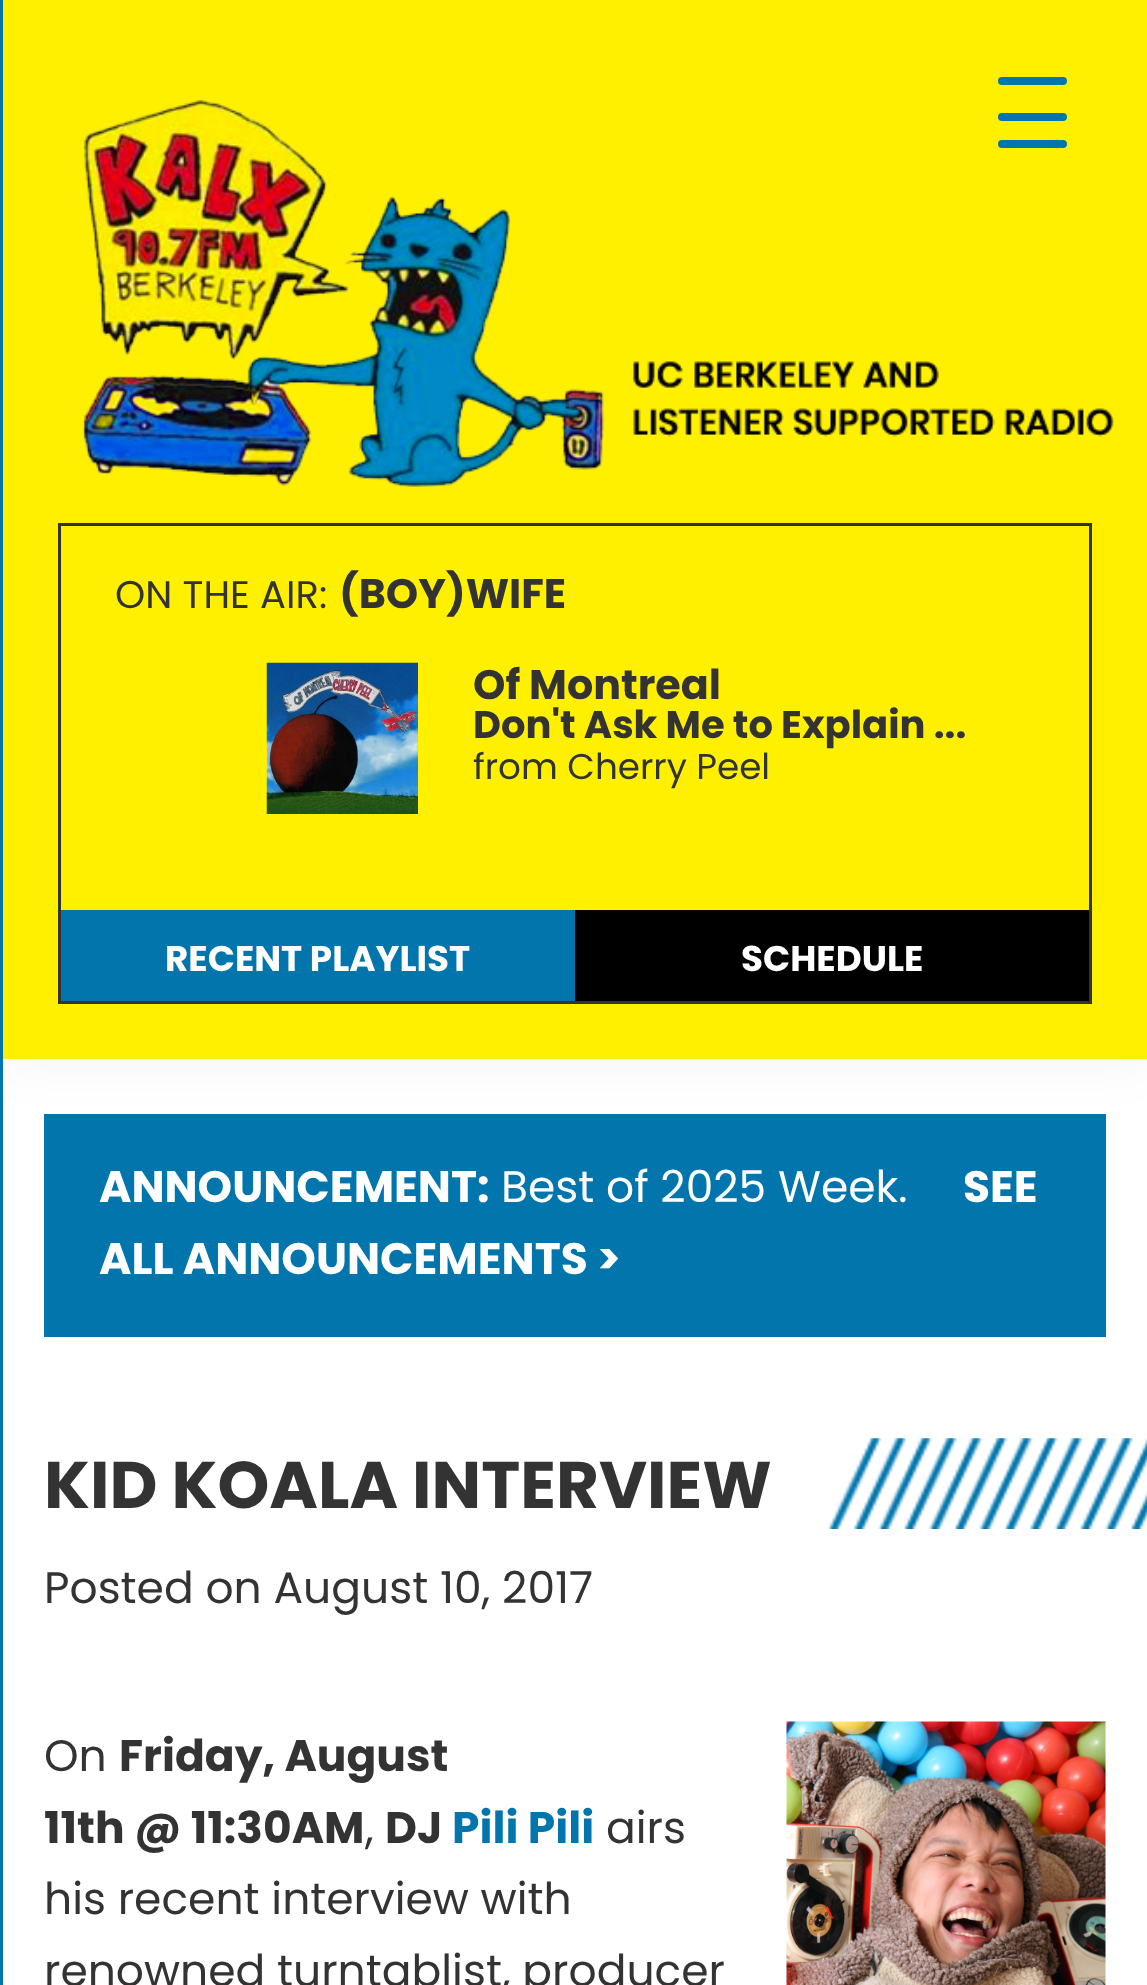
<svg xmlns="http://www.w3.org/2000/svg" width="1147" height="1985">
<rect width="100%" height="100%" fill="#fff"/>
<rect width="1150" height="1059" fill="#0000000d" filter="blur(27.5px)"/>
<rect width="3" height="1985" fill="#0276ac"/>
<rect x="3" width="1144" height="1059" fill="#fff000"/>
<image x="82" y="100" width="1032" height="387" href="media/1.png"/>
<rect x="998" y="113" width="69" height="8" rx="4" fill="#0276ac"/>
<rect x="998" y="77" width="69" height="8" rx="4" fill="#0276ac"/>
<rect x="998" y="140" width="69" height="8" rx="4" fill="#0276ac"/>
<rect x="59.5" y="524.5" width="1031" height="478" fill="none" stroke="#333" stroke-width="3"/>
<text x="115" y="608" style="font-family:Poppins;font-size:38.5px;fill:#333">ON THE AIR:</text>
<text x="339" y="608" style="font-family:Poppins;font-size:41.25px;font-weight:bold;fill:#333">(BOY)WIFE</text>
<image x="266" y="662" width="152" height="152" href="media/2.png"/>
<text x="473" y="699" style="font-family:Poppins;font-size:41.25px;font-weight:bold;fill:#333">Of Montreal</text>
<text x="473" y="738" style="font-family:Poppins;font-size:38.5px;font-weight:bold;fill:#333">Don't Ask Me to Explain ...</text>
<text x="473" y="779" style="font-family:Poppins;font-size:35.75px;fill:#333">from Cherry Peel</text>
<rect x="61" y="910" width="514" height="91" fill="#0276ac"/>
<text x="165" y="971" style="font-family:Poppins;font-size:35.75px;font-weight:bold;fill:#fff">RECENT PLAYLIST</text>
<rect x="575" y="910" width="514" height="91" fill="#000"/>
<text x="741" y="971" style="font-family:Poppins;font-size:35.75px;font-weight:bold;fill:#fff">SCHEDULE</text>
<rect x="44" y="1114" width="1062" height="223" fill="#0276ac"/>
<text x="99" y="1202" style="font-family:Poppins;font-size:44px;font-weight:bold;fill:#fff">ANNOUNCEMENT:</text>
<text x="501" y="1202" style="font-family:Poppins;font-size:44px;fill:#fff">Best of 2025 Week.</text>
<text x="963" y="1202" style="font-family:Poppins;font-size:44px;font-weight:bold;fill:#fff">SEE</text>
<text x="99" y="1274" style="font-family:Poppins;font-size:44px;font-weight:bold;fill:#fff">ALL ANNOUNCEMENTS &gt;</text>
<text x="44" y="1508" style="font-family:Poppins;font-size:66px;font-weight:bold;fill:#333">KID KOALA INTERVIEW</text>
<image x="828" y="1438" width="319" height="91" href="media/3.png"/>
<text x="44" y="1603" style="font-family:Poppins;font-size:44px;fill:#333">Posted on August 10, 2017</text>
<text x="44" y="1771" style="font-family:Poppins;font-size:44px;fill:#333">On</text>
<text x="119" y="1771" style="font-family:Poppins;font-size:44px;font-weight:bold;fill:#333">Friday, August</text>
<text x="44" y="1843" style="font-family:Poppins;font-size:44px;font-weight:bold;fill:#333">11th @ 11:30AM</text>
<text x="365" y="1843" style="font-family:Poppins;font-size:44px;fill:#333">,</text>
<text x="385" y="1843" style="font-family:Poppins;font-size:44px;font-weight:bold;fill:#333">DJ</text>
<text x="452" y="1843" style="font-family:Poppins;font-size:44px;font-weight:bold;fill:#0276ac">Pili Pili</text>
<text x="606" y="1843" style="font-family:Poppins;font-size:44px;fill:#333">airs</text>
<text x="44" y="1914" style="font-family:Poppins;font-size:44px;fill:#333">his recent interview with</text>
<text x="44" y="1986" style="font-family:Poppins;font-size:44px;fill:#333">renowned turntablist, producer</text>
<image x="786" y="1721" width="320" height="264" href="media/4.png"/>
</svg>
